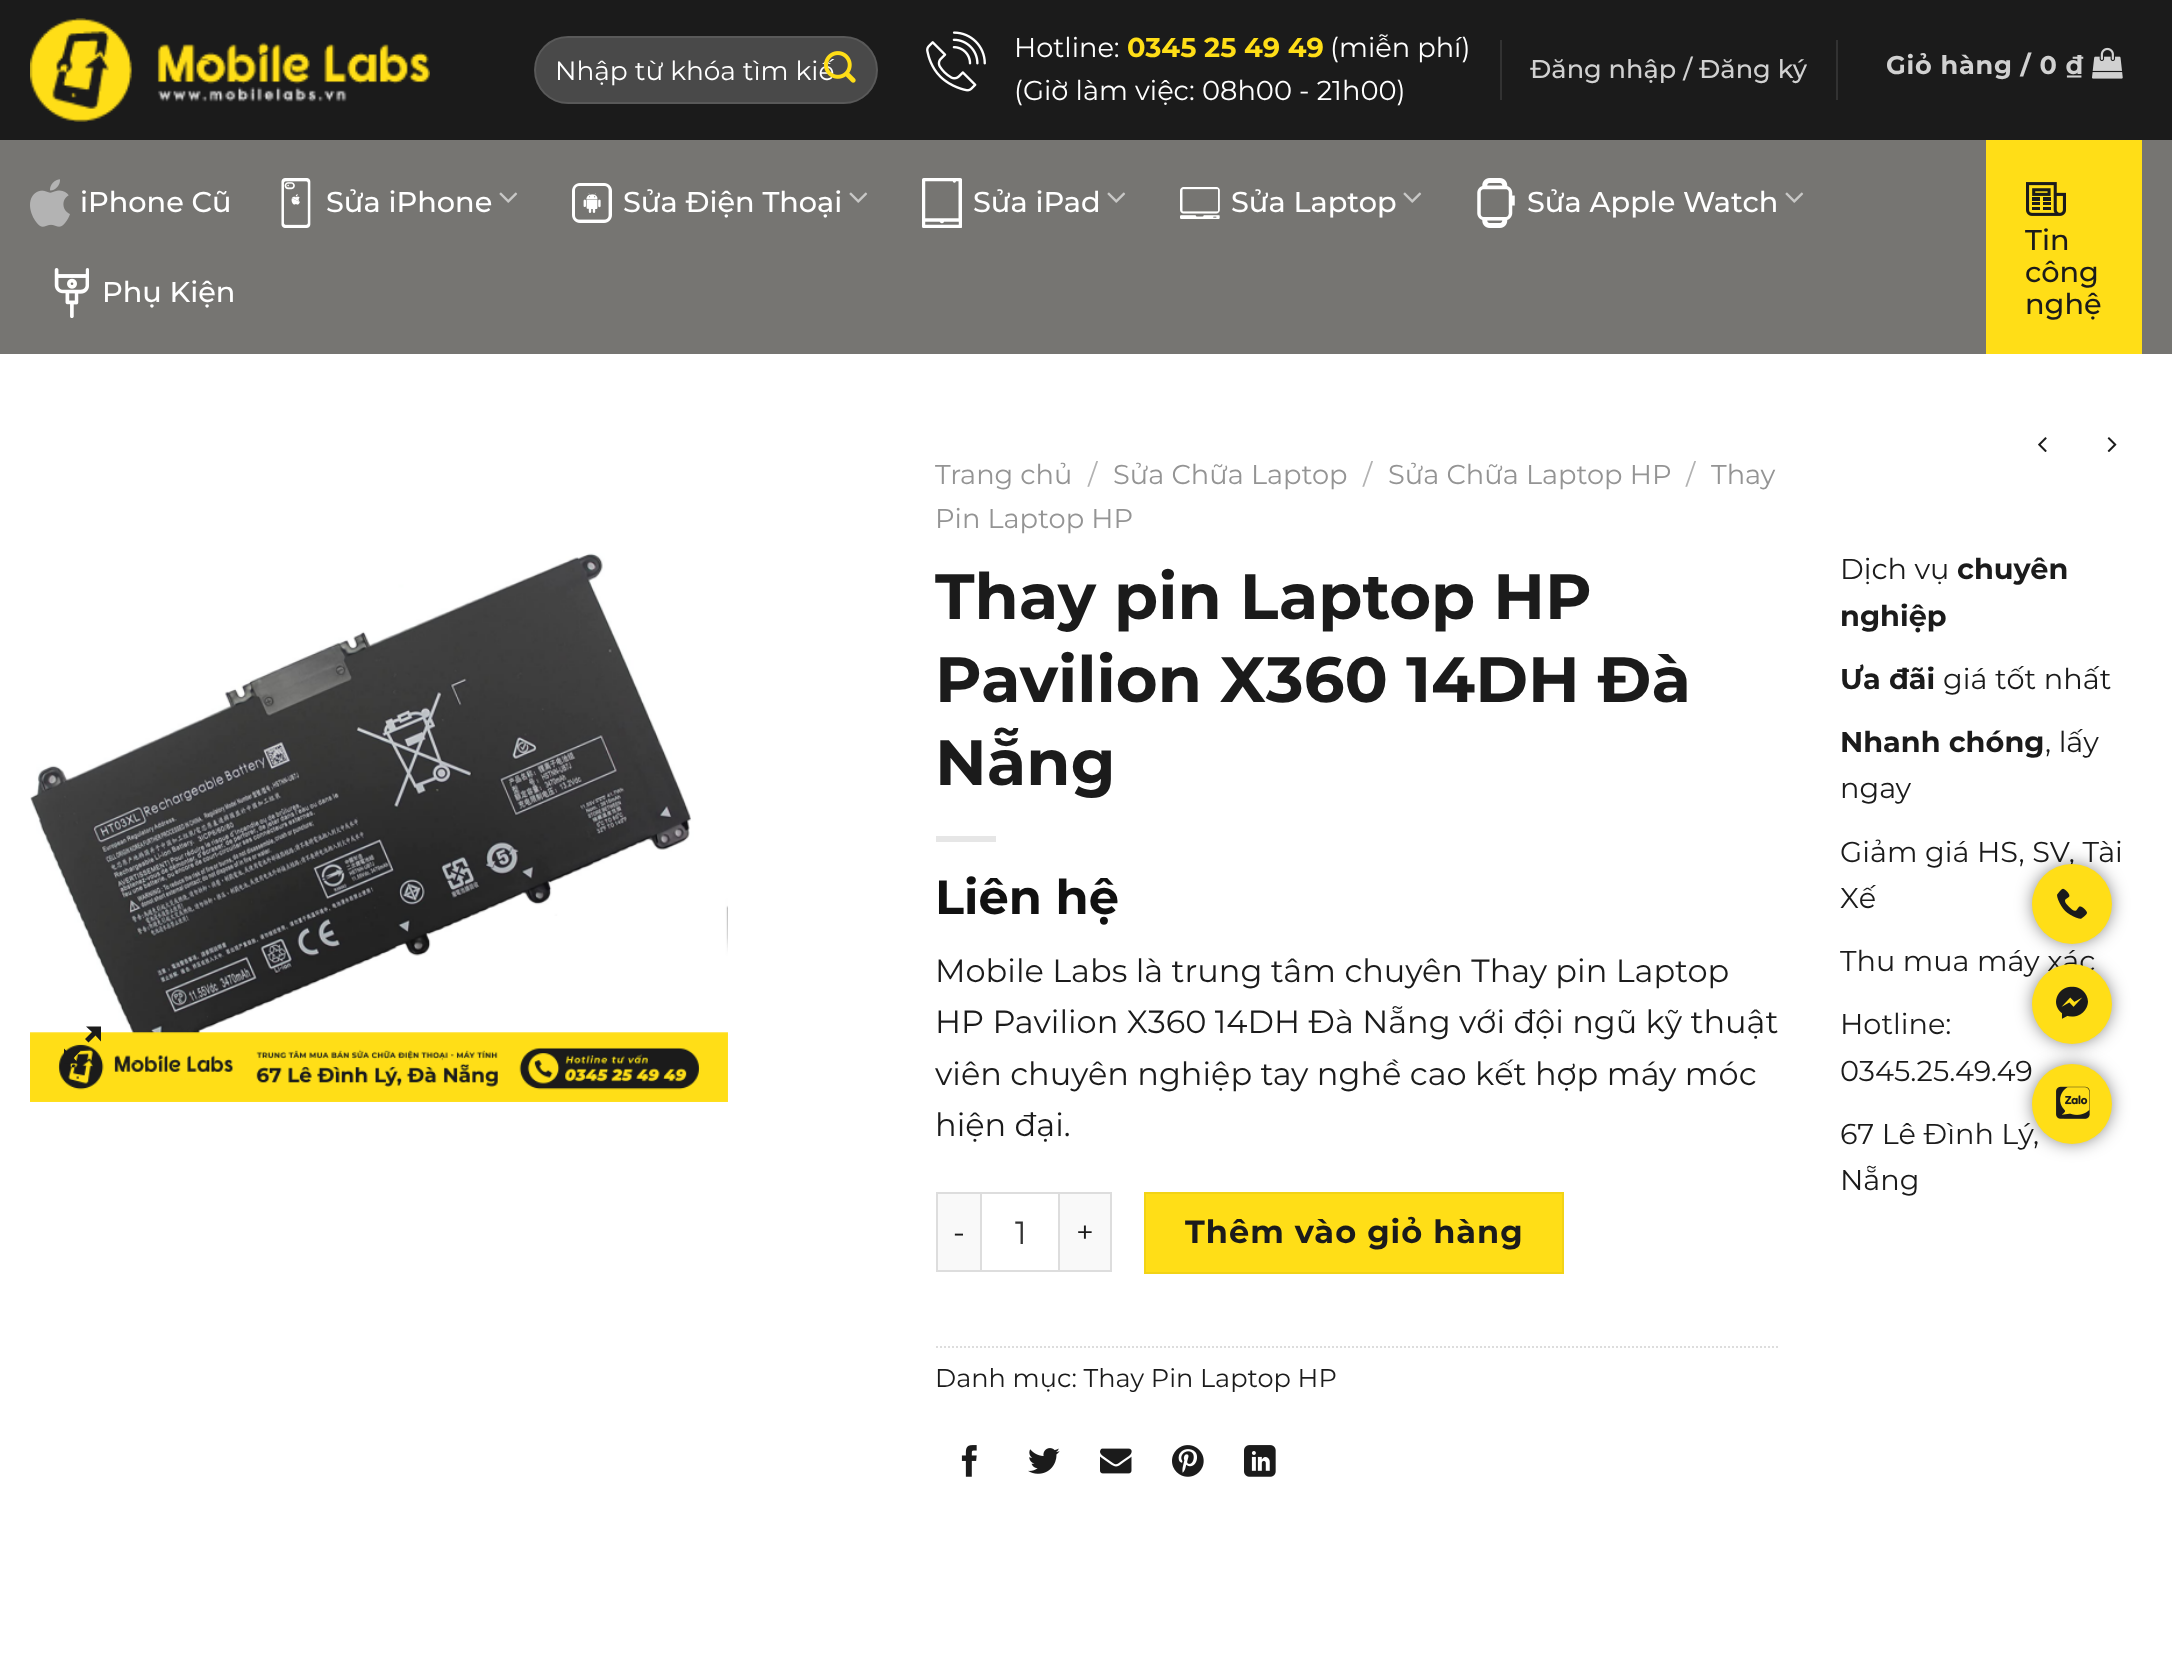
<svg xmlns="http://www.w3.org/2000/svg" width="2172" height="1661">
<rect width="100%" height="100%" fill="#fff"/>
<rect width="2172" height="140" fill="#1b1b1b"/>
<image x="30" y="18" width="400" height="104" href="media/1.png"/>
<rect x="534" y="36" width="344" height="68" rx="34" fill="#494949"/>
<rect x="535" y="37" width="342" height="66" rx="33" fill="none" stroke="#ffffff17" stroke-width="2"/>
<text x="555" y="80" style="font-family:Montserrat;font-size:26.4px;fill:#fff">Nhập từ khóa tìm kiế</text>
<image x="824" y="51" width="32" height="32" href="media/2.png"/>
<image x="926" y="31" width="60" height="61" href="media/3.png"/>
<text x="1014" y="57" style="font-family:Montserrat;font-size:27.25px;fill:#fff">Hotline:</text>
<text x="1127" y="57" style="font-family:Montserrat;font-size:27.25px;font-weight:bold;fill:#ffde17">0345 25 49 49</text>
<text x="1330" y="57" style="font-family:Montserrat;font-size:27.25px;fill:#fff">(miễn phí)</text>
<text x="1014" y="100" style="font-family:Montserrat;font-size:27.25px;fill:#fff">(Giờ làm việc: 08h00 - 21h00)</text>
<rect x="1500" y="40" width="2" height="60" fill="#323232"/>
<text x="1530" y="78" style="font-family:Montserrat;font-size:25.6px;font-weight:500;fill:#d1d1d1">Đăng nhập / Đăng ký</text>
<rect x="1836" y="40" width="2" height="60" fill="#323232"/>
<text x="1886" y="74" style="font-family:Montserrat;font-size:25.6px;font-weight:bold;letter-spacing:0.75px;fill:#d1d1d1">Giỏ hàng / 0 ₫</text>
<image x="2092" y="47" width="31" height="32" href="media/4.png"/>
<rect y="140" width="2172" height="214" fill="#767572"/>
<image x="30" y="179" width="40" height="48" href="media/5.png"/>
<text x="80" y="212" style="font-family:Montserrat;font-size:28.75px;font-weight:500;fill:#fff">iPhone Cũ</text>
<image x="281" y="178" width="30" height="50" href="media/6.png"/>
<text x="326" y="212" style="font-family:Montserrat;font-size:28.75px;font-weight:500;fill:#fff">Sửa iPhone</text>
<image x="499" y="192" width="19" height="11" href="media/7.png"/>
<image x="572" y="183" width="40" height="40" href="media/8.png"/>
<text x="623" y="212" style="font-family:Montserrat;font-size:28.75px;font-weight:500;fill:#fff">Sửa Điện Thoại</text>
<image x="849" y="192" width="19" height="11" href="media/7.png"/>
<image x="922" y="178" width="40" height="50" href="media/9.png"/>
<text x="973" y="212" style="font-family:Montserrat;font-size:28.75px;font-weight:500;fill:#fff">Sửa iPad</text>
<image x="1107" y="192" width="19" height="11" href="media/7.png"/>
<image x="1180" y="187" width="40" height="32" href="media/10.png"/>
<text x="1231" y="212" style="font-family:Montserrat;font-size:28.75px;font-weight:500;fill:#fff">Sửa Laptop</text>
<image x="1403" y="192" width="19" height="11" href="media/7.png"/>
<image x="1477" y="178" width="38" height="50" href="media/11.png"/>
<text x="1527" y="212" style="font-family:Montserrat;font-size:28.75px;font-weight:500;fill:#fff">Sửa Apple Watch</text>
<image x="1785" y="192" width="19" height="11" href="media/7.png"/>
<image x="54" y="268" width="35" height="50" href="media/12.png"/>
<text x="102" y="302" style="font-family:Montserrat;font-size:28.75px;font-weight:500;fill:#fff">Phụ Kiện</text>
<rect x="1986" y="140" width="156" height="214" fill="#ffde17"/>
<image x="2026" y="182" width="40" height="34" href="media/13.png"/>
<text x="2025" y="250" style="font-family:Montserrat;font-size:28.75px;font-weight:500;fill:#1b1b1b">Tin</text>
<text x="2025" y="282" style="font-family:Montserrat;font-size:28.75px;font-weight:500;fill:#1b1b1b">công</text>
<text x="2025" y="314" style="font-family:Montserrat;font-size:28.75px;font-weight:500;fill:#1b1b1b">nghệ</text>
<image x="30" y="553" width="698" height="549" href="media/14.png"/>
<path d="M101 1026.5v15l-5.5-6l-7 7l-3.5-3.5l7-7l-6-5.5zm-20.5 24.5l-7 7l5.5 5.5h-15v-15l6 6l7-7z" fill="#1b1b1b"/>
<text x="935" y="484" style="font-family:Montserrat;font-size:27.25px;fill:#949494">Trang chủ</text>
<text x="1088" y="484" style="font-family:Montserrat;font-size:27.25px;fill:#b2b2b2">/</text>
<text x="1113" y="484" style="font-family:Montserrat;font-size:27.25px;fill:#949494">Sửa Chữa Laptop</text>
<text x="1363" y="484" style="font-family:Montserrat;font-size:27.25px;fill:#b2b2b2">/</text>
<text x="1388" y="484" style="font-family:Montserrat;font-size:27.25px;fill:#949494">Sửa Chữa Laptop HP</text>
<text x="1686" y="484" style="font-family:Montserrat;font-size:27.25px;fill:#b2b2b2">/</text>
<text x="1711" y="484" style="font-family:Montserrat;font-size:27.25px;fill:#949494">Thay</text>
<text x="935" y="528" style="font-family:Montserrat;font-size:27.25px;fill:#949494">Pin Laptop HP</text>
<text x="935" y="619" style="font-family:Montserrat;font-size:64px;font-weight:bold;fill:#1b1b1b">Thay pin Laptop HP</text>
<text x="935" y="702" style="font-family:Montserrat;font-size:64px;font-weight:bold;fill:#1b1b1b">Pavilion X360 14DH Đà</text>
<text x="935" y="785" style="font-family:Montserrat;font-size:64px;font-weight:bold;fill:#1b1b1b">Nẵng</text>
<rect x="936" y="836" width="60" height="6" fill="#e6e6e6"/>
<text x="935" y="914" style="font-family:Montserrat;font-size:48px;font-weight:bold;fill:#111">Liên hệ</text>
<text x="935" y="982" style="font-family:Montserrat;font-size:32px;fill:#1b1b1b">Mobile Labs là trung tâm chuyên Thay pin Laptop</text>
<text x="935" y="1033" style="font-family:Montserrat;font-size:32px;fill:#1b1b1b">HP Pavilion X360 14DH Đà Nẵng với đội ngũ kỹ thuật</text>
<text x="935" y="1085" style="font-family:Montserrat;font-size:32px;fill:#1b1b1b">viên chuyên nghiệp tay nghề cao kết hợp máy móc</text>
<text x="935" y="1136" style="font-family:Montserrat;font-size:32px;fill:#1b1b1b">hiện đại.</text>
<rect x="938" y="1194" width="42" height="76" fill="#f9f9f9"/>
<rect x="936" y="1192" width="44" height="2" fill="#ddd"/>
<rect x="936" y="1270" width="44" height="2" fill="#ddd"/>
<rect x="936" y="1192" width="2" height="80" fill="#ddd"/>
<text x="953" y="1243" style="font-family:Montserrat;font-size:31px;letter-spacing:1px;fill:#1b1b1b">-</text>
<rect x="981" y="1193" width="78" height="78" fill="none" stroke="#ddd" stroke-width="2"/>
<text x="1015" y="1244" style="font-family:Montserrat;font-size:32px;fill:#333">1</text>
<rect x="1060" y="1194" width="50" height="76" fill="#f9f9f9"/>
<rect x="1060" y="1192" width="52" height="2" fill="#ddd"/>
<rect x="1110" y="1192" width="2" height="80" fill="#ddd"/>
<rect x="1060" y="1270" width="52" height="2" fill="#ddd"/>
<text x="1076" y="1243" style="font-family:Montserrat;font-size:31px;letter-spacing:1px;fill:#1b1b1b">+</text>
<rect x="1145" y="1193" width="418" height="80" fill="#ffde17" stroke="#f2d316" stroke-width="2"/>
<text x="1185" y="1243" style="font-family:Montserrat;font-size:32px;font-weight:bold;letter-spacing:1px;fill:#1b1b1b">Thêm vào giỏ hàng</text>
<path d="M936 1347h844" fill="none" stroke="#ddd" stroke-width="2" stroke-dasharray="2 2"/>
<text x="935" y="1387" style="font-family:Montserrat;font-size:25.6px;fill:#1b1b1b">Danh mục: Thay Pin Laptop HP</text>
<image x="961" y="1445" width="16" height="32" href="media/15.png"/>
<image x="1028" y="1448" width="32" height="26" href="media/16.png"/>
<image x="1100" y="1448" width="32" height="26" href="media/17.png"/>
<image x="1172" y="1445" width="32" height="32" href="media/18.png"/>
<image x="1244" y="1445" width="32" height="32" href="media/19.png"/>
<image x="2038" y="437" width="9" height="15" href="media/20.png"/>
<image x="2107" y="437" width="10" height="15" href="media/21.png"/>
<text x="1840" y="579" style="font-family:Montserrat;font-size:28.75px;fill:#1b1b1b">Dịch vụ</text>
<text x="1957" y="579" style="font-family:Montserrat;font-size:28.75px;font-weight:bold;fill:#1b1b1b">chuyên</text>
<text x="1840" y="626" style="font-family:Montserrat;font-size:28.75px;font-weight:bold;fill:#1b1b1b">nghiệp</text>
<text x="1840" y="689" style="font-family:Montserrat;font-size:28.75px;font-weight:bold;fill:#1b1b1b">Ưa đãi</text>
<text x="1943" y="689" style="font-family:Montserrat;font-size:28.75px;fill:#1b1b1b">giá tốt nhất</text>
<text x="1840" y="752" style="font-family:Montserrat;font-size:28.75px;font-weight:bold;fill:#1b1b1b">Nhanh chóng</text>
<text x="2045" y="752" style="font-family:Montserrat;font-size:28.75px;fill:#1b1b1b">, lấy</text>
<text x="1840" y="798" style="font-family:Montserrat;font-size:28.75px;fill:#1b1b1b">ngay</text>
<text x="1840" y="862" style="font-family:Montserrat;font-size:28.75px;fill:#1b1b1b">Giảm giá HS, SV, Tài</text>
<text x="1840" y="908" style="font-family:Montserrat;font-size:28.75px;fill:#1b1b1b">Xế</text>
<text x="1840" y="971" style="font-family:Montserrat;font-size:28.75px;fill:#1b1b1b">Thu mua máy xác</text>
<text x="1840" y="1034" style="font-family:Montserrat;font-size:28.75px;fill:#1b1b1b">Hotline:</text>
<text x="1840" y="1081" style="font-family:Montserrat;font-size:28.75px;fill:#1b1b1b">0345.25.49.49</text>
<text x="1840" y="1144" style="font-family:Montserrat;font-size:28.75px;fill:#1b1b1b">67 Lê Đình Lý,</text>
<text x="1840" y="1190" style="font-family:Montserrat;font-size:28.75px;fill:#1b1b1b">Nẵng</text>
<rect x="2036" y="868" width="72" height="72" rx="36" fill="#000000b3" filter="blur(10px)"/>
<circle cx="2072" cy="904" r="40" fill="#ffde17"/>
<image x="2057" y="888" width="30" height="31" href="media/22.png"/>
<rect x="2036" y="968" width="72" height="72" rx="36" fill="#000000b3" filter="blur(10px)"/>
<circle cx="2072" cy="1004" r="40" fill="#ffde17"/>
<image x="2056" y="986" width="32" height="33" href="media/23.png"/>
<rect x="2036" y="1068" width="72" height="72" rx="36" fill="#000000b3" filter="blur(10px)"/>
<circle cx="2072" cy="1104" r="40" fill="#ffde17"/>
<image x="2056" y="1086" width="34" height="33" href="media/24.png"/>
</svg>
